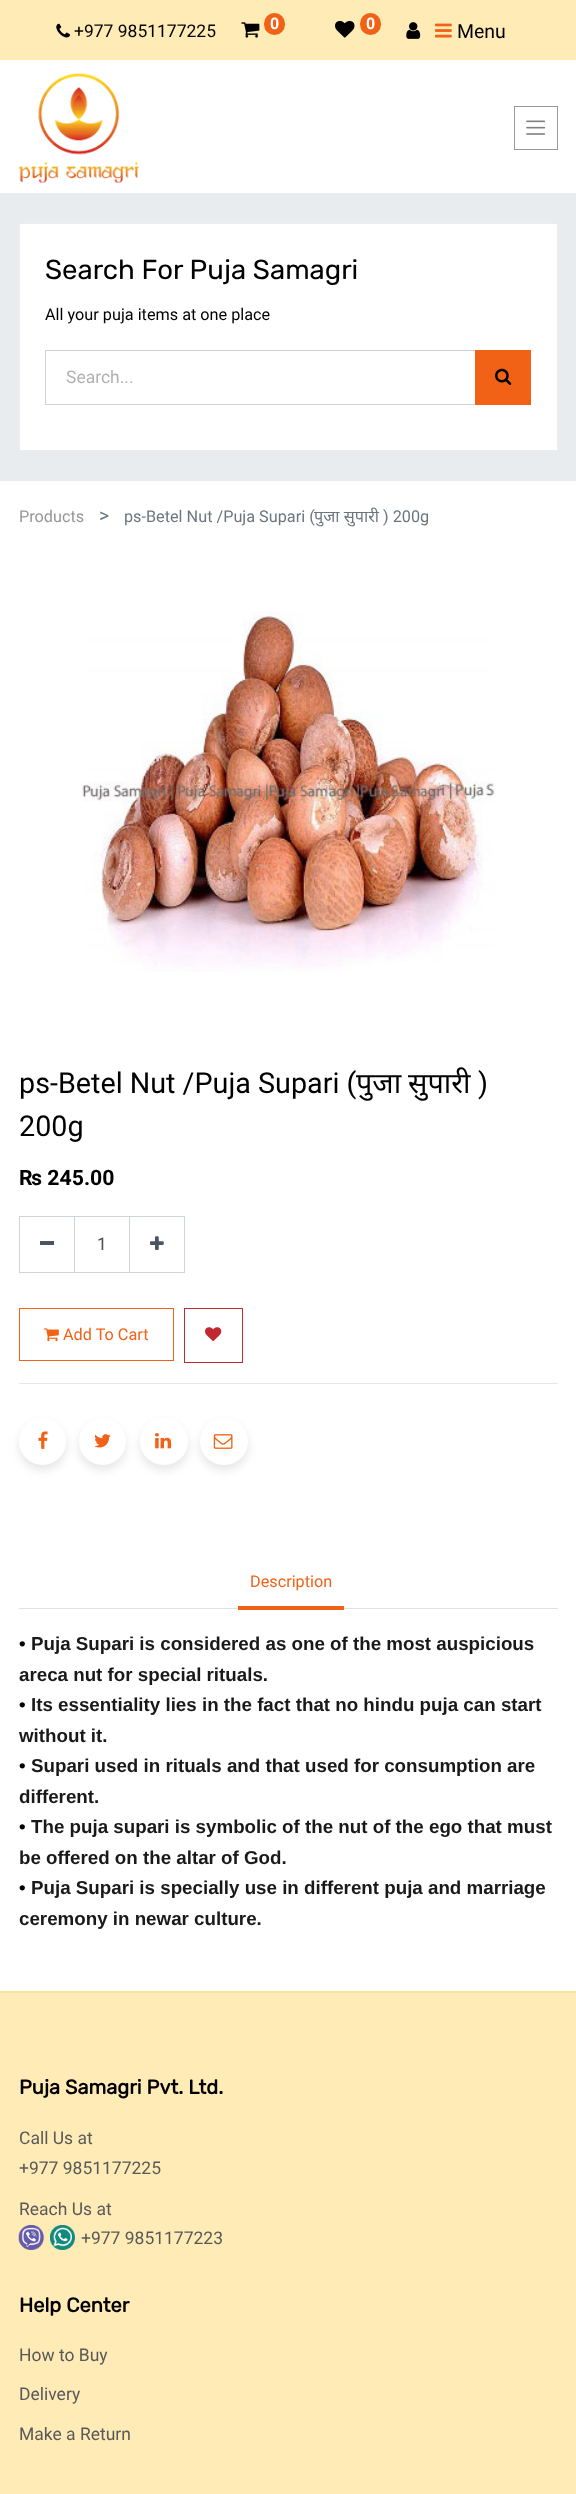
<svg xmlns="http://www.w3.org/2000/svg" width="576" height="2494">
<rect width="100%" height="100%" fill="#fff"/>
<rect width="576" height="60" fill="#feebb6"/>
<image x="56" y="23" width="14" height="15" href="media/1.png"/>
<text x="74" y="37" style="font-family:Roboto;font-size:17.5px;fill:#000">+977 9851177225</text>
<image x="241" y="22" width="19" height="16" href="media/2.png"/>
<rect x="264" y="13" width="21" height="22" rx="10.5" fill="#f16216"/>
<text x="270" y="29" style="font-family:Roboto;font-size:16px;font-weight:bold;fill:#fff">0</text>
<image x="335" y="20" width="20" height="18" href="media/3.png"/>
<rect x="360" y="13" width="21" height="22" rx="10.5" fill="#f16216"/>
<text x="366" y="29" style="font-family:Roboto;font-size:16px;font-weight:bold;fill:#fff">0</text>
<image x="406" y="22" width="15" height="17" href="media/4.png"/>
<image x="435" y="23" width="17" height="15" href="media/5.png"/>
<text x="457" y="38" style="font-family:Roboto;font-size:19.5px;fill:#000">Menu</text>
<image x="18" y="73" width="121" height="110" href="media/6.png"/>
<rect x="514.5" y="106.5" width="43" height="43" fill="none" stroke="#999"/>
<image x="526" y="120" width="20" height="15" href="media/7.png"/>
<rect y="193" width="576" height="288" fill="#e9ecef"/>
<rect x="19.5" y="223.5" width="538" height="227" fill="#fff" stroke="#ededed"/>
<text x="45" y="279" style="font-family:Rubik;font-size:27.5px;font-weight:300;fill:#000">Search For Puja Samagri</text>
<text x="45" y="320" style="font-family:Roboto;font-size:16.25px;fill:#000">All your puja items at one place</text>
<rect x="45.5" y="350.5" width="430" height="54" fill="none" stroke="#ced4da"/>
<text x="66" y="383" style="font-family:Roboto;font-size:17.5px;fill:#b1b1b1">Search...</text>
<rect x="475" y="350" width="56" height="55" fill="#f16216"/>
<image x="495" y="368" width="17" height="17" href="media/8.png"/>
<text x="19" y="522" style="font-family:Roboto;font-size:16.25px;fill:#969696">Products</text>
<text x="99" y="522" style="font-family:Roboto;font-size:19.5px;fill:#6c757d">&gt;</text>
<text x="124" y="522" style="font-family:Roboto;font-size:16.25px;fill:#6c757d">ps-Betel Nut /Puja Supari (</text>
<text x="314" y="522" style="font-family:Noto Sans;font-size:16.25px;fill:#6c757d">पुजा सुपारी</text>
<text x="383" y="522" style="font-family:Roboto;font-size:16.25px;fill:#6c757d">) 200g</text>
<image x="82" y="611" width="412" height="361" href="media/9.png"/>
<text x="19" y="1093" style="font-family:Roboto;font-size:28.75px;fill:#000">ps-Betel Nut /Puja Supari (</text>
<text x="356" y="1093" style="font-family:Noto Sans;font-size:28.75px;fill:#000">पुजा</text>
<text x="408" y="1093" style="font-family:Noto Sans;font-size:28.75px;fill:#000">सुपारी</text>
<text x="478" y="1093" style="font-family:Roboto;font-size:28.75px;fill:#000">)</text>
<text x="19" y="1136" style="font-family:Roboto;font-size:28.75px;fill:#000">200g</text>
<text x="19" y="1185" style="font-family:Roboto;font-size:21.25px;font-weight:bold;fill:#000">₨ 245.00</text>
<rect x="19.5" y="1216.5" width="55" height="56" fill="none" stroke="#ced4da"/>
<rect x="40" y="1241" width="14" height="4" fill="#4c5462"/>
<rect x="74.5" y="1216.5" width="55" height="56" fill="none" stroke="#ced4da"/>
<text x="97" y="1250" style="font-family:Roboto;font-size:17.5px;fill:#495057">1</text>
<rect x="129.5" y="1216.5" width="55" height="56" fill="none" stroke="#ced4da"/>
<image x="150" y="1236" width="14" height="14" href="media/10.png"/>
<rect x="19.5" y="1308.5" width="154" height="52" fill="none" stroke="#f16216"/>
<image x="43" y="1328" width="16" height="14" href="media/11.png"/>
<text x="63" y="1340" style="font-family:Roboto;font-size:16.25px;fill:#f16216">Add To Cart</text>
<rect x="184.5" y="1308.5" width="58" height="54" fill="none" stroke="#c12830"/>
<image x="205" y="1327" width="17" height="15" href="media/12.png"/>
<rect x="19" y="1383" width="539" height="1" fill="#e6e6e6"/>
<rect x="19" y="1423" width="47" height="47" rx="23.5" fill="#0000001a" filter="blur(5px)"/>
<circle cx="42.5" cy="1441.5" r="23.5" fill="#fff"/>
<image x="38" y="1431" width="10" height="18" href="media/13.png"/>
<rect x="79" y="1423" width="47" height="47" rx="23.5" fill="#0000001a" filter="blur(5px)"/>
<circle cx="102.5" cy="1441.5" r="23.5" fill="#fff"/>
<image x="94" y="1434" width="17" height="14" href="media/14.png"/>
<rect x="140" y="1423" width="48" height="47" rx="23.5" fill="#0000001a" filter="blur(5px)"/>
<rect x="140" y="1418" width="48" height="47" rx="23.5" fill="#fff"/>
<image x="155" y="1433" width="17" height="16" href="media/15.png"/>
<rect x="200" y="1423" width="48" height="47" rx="23.5" fill="#0000001a" filter="blur(5px)"/>
<rect x="200" y="1418" width="48" height="47" rx="23.5" fill="#fff"/>
<image x="213" y="1434" width="20" height="15" href="media/16.png"/>
<rect x="19" y="1608" width="539" height="1" fill="#dee2e6"/>
<rect x="238" y="1606" width="106" height="4" fill="#f16216"/>
<text x="250" y="1587" style="font-family:Roboto;font-size:16.25px;fill:#f16216">Description</text>
<text x="19" y="1650" style="font-family:Liberation Sans;font-size:18.75px;font-weight:bold;fill:#000">•</text>
<text x="31" y="1650" style="font-family:Liberation Sans;font-size:18.75px;font-weight:bold;fill:#191919">Puja Supari is considered as one of the most auspicious</text>
<text x="19" y="1681" style="font-family:Liberation Sans;font-size:18.75px;font-weight:bold;fill:#191919">areca nut for special rituals.</text>
<text x="19" y="1711" style="font-family:Liberation Sans;font-size:18.75px;font-weight:bold;fill:#000">•</text>
<text x="31" y="1711" style="font-family:Liberation Sans;font-size:18.75px;font-weight:bold;fill:#191919">Its essentiality lies in the fact that no hindu puja can start</text>
<text x="19" y="1742" style="font-family:Liberation Sans;font-size:18.75px;font-weight:bold;fill:#191919">without it.</text>
<text x="19" y="1772" style="font-family:Liberation Sans;font-size:18.75px;font-weight:bold;fill:#000">•</text>
<text x="31" y="1772" style="font-family:Liberation Sans;font-size:18.75px;font-weight:bold;fill:#191919">Supari used in rituals and that used for consumption are</text>
<text x="19" y="1803" style="font-family:Liberation Sans;font-size:18.75px;font-weight:bold;fill:#191919">different.</text>
<text x="19" y="1833" style="font-family:Liberation Sans;font-size:18.75px;font-weight:bold;fill:#000">•</text>
<text x="31" y="1833" style="font-family:Liberation Sans;font-size:18.75px;font-weight:bold;fill:#191919">The puja supari is symbolic of the nut of the ego that must</text>
<text x="19" y="1864" style="font-family:Liberation Sans;font-size:18.75px;font-weight:bold;fill:#191919">be offered on the altar of God.</text>
<text x="19" y="1894" style="font-family:Liberation Sans;font-size:18.75px;font-weight:bold;fill:#000">•</text>
<text x="31" y="1894" style="font-family:Liberation Sans;font-size:18.75px;font-weight:bold;fill:#191919">Puja Supari is specially use in different puja and marriage</text>
<text x="19" y="1925" style="font-family:Liberation Sans;font-size:18.75px;font-weight:bold;fill:#191919">ceremony in newar culture.</text>
<rect y="1991" width="576" height="2" fill="#fee399"/>
<rect y="1993" width="576" height="501" fill="#feebb6"/>
<text x="19" y="2094" style="font-family:Rubik;font-size:20px;font-weight:bold;fill:#000">Puja Samagri Pvt. Ltd.</text>
<text x="19" y="2144" style="font-family:Roboto;font-size:17.5px;fill:#595959">Call Us at</text>
<text x="19" y="2174" style="font-family:Roboto;font-size:17.5px;fill:#595959">+977 9851177225</text>
<text x="19" y="2215" style="font-family:Roboto;font-size:17.5px;fill:#595959">Reach Us at</text>
<image x="18" y="2225" width="26" height="25" href="media/17.png"/>
<image x="50" y="2225" width="25" height="25" href="media/18.png"/>
<text x="81" y="2244" style="font-family:Roboto;font-size:17.5px;fill:#595959">+977 9851177223</text>
<text x="19" y="2312" style="font-family:Rubik;font-size:20px;font-weight:bold;fill:#000">Help Center</text>
<text x="19" y="2361" style="font-family:Roboto;font-size:17.5px;fill:#595959">How to Buy</text>
<text x="19" y="2400" style="font-family:Roboto;font-size:17.5px;fill:#595959">Delivery</text>
<text x="19" y="2440" style="font-family:Roboto;font-size:17.5px;fill:#595959">Make a Return</text>
</svg>
